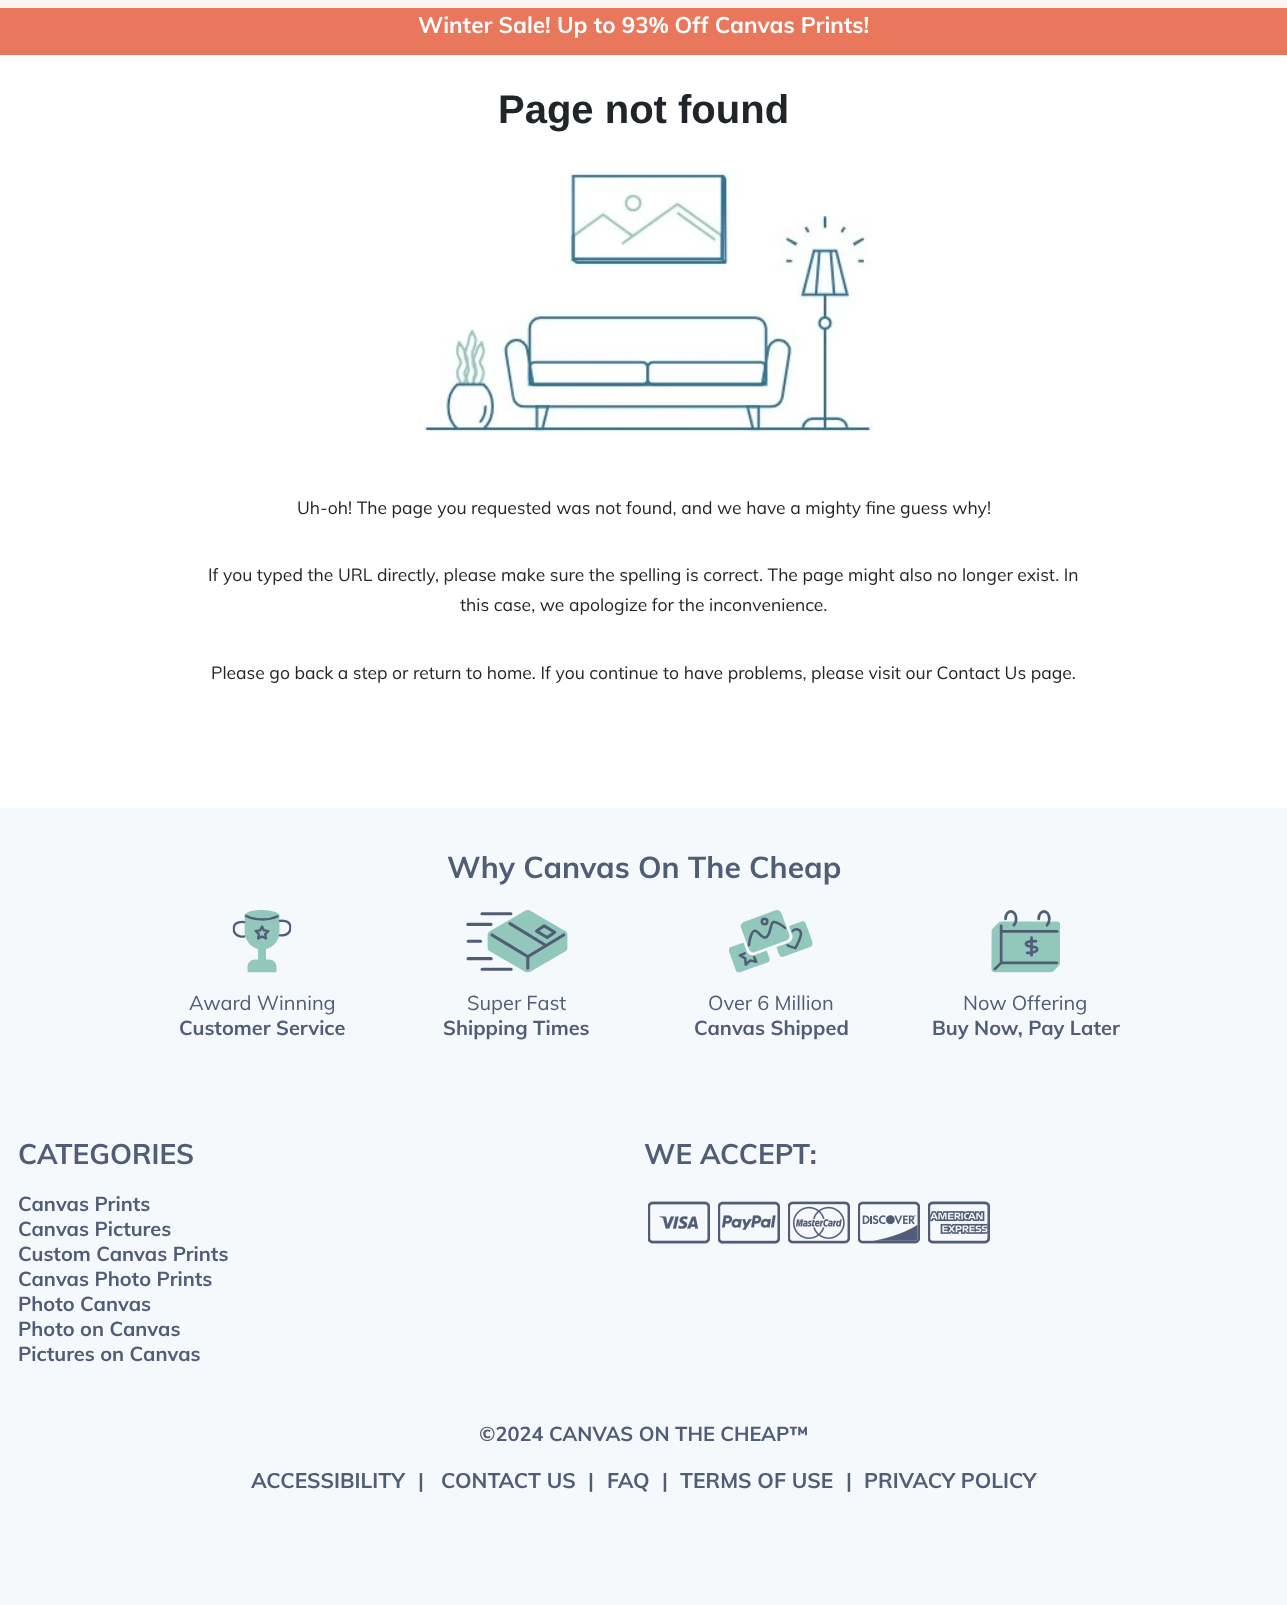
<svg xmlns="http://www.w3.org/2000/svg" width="1287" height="1605">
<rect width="100%" height="100%" fill="#fff"/>
<rect width="1287" height="8" fill="#faf6f3"/>
<rect y="8" width="1287" height="47" fill="#e9775c"/>
<text x="418" y="33" style="font-family:Muli;font-size:22.5px;font-weight:bold;fill:#fff">Winter Sale! Up to 93% Off Canvas Prints!</text>
<text x="498" y="123" style="font-family:Liberation Sans;font-size:40px;font-weight:bold;fill:#212529">Page not found</text>
<image x="417" y="170" width="457" height="264" href="media/1.png"/>
<text x="297" y="514" style="font-family:Muli;font-size:17.5px;fill:#212529">Uh-oh! The page you requested was not found, and we have a mighty fine guess why!</text>
<text x="208" y="581" style="font-family:Muli;font-size:17.5px;fill:#212529">If you typed the URL directly, please make sure the spelling is correct. The page might also no longer exist. In</text>
<text x="460" y="611" style="font-family:Muli;font-size:17.5px;fill:#212529">this case, we apologize for the inconvenience.</text>
<text x="211" y="679" style="font-family:Muli;font-size:17.5px;fill:#212529">Please go back a step or return to home. If you continue to have problems, please visit our Contact Us page.</text>
<rect y="808" width="1287" height="797" fill="#f6f9fb"/>
<text x="447" y="878" style="font-family:Muli;font-size:30px;font-weight:bold;fill:#505d77">Why Canvas On The Cheap</text>
<image x="232" y="910" width="60" height="63" href="media/2.png"/>
<text x="189" y="1010" style="font-family:Muli;font-size:20px;fill:#505d77">Award Winning</text>
<text x="179" y="1035" style="font-family:Muli;font-size:20px;font-weight:bold;fill:#505d77">Customer Service</text>
<image x="466" y="910" width="102" height="63" href="media/3.png"/>
<text x="467" y="1010" style="font-family:Muli;font-size:20px;fill:#505d77">Super Fast</text>
<text x="443" y="1035" style="font-family:Muli;font-size:20px;font-weight:bold;fill:#505d77">Shipping Times</text>
<image x="728" y="910" width="85" height="63" href="media/4.png"/>
<text x="708" y="1010" style="font-family:Muli;font-size:20px;fill:#505d77">Over 6 Million</text>
<text x="694" y="1035" style="font-family:Muli;font-size:20px;font-weight:bold;fill:#505d77">Canvas Shipped</text>
<image x="991" y="910" width="69" height="63" href="media/5.png"/>
<text x="963" y="1010" style="font-family:Muli;font-size:20px;fill:#505d77">Now Offering</text>
<text x="932" y="1035" style="font-family:Muli;font-size:20px;font-weight:bold;fill:#505d77">Buy Now, Pay Later</text>
<text x="18" y="1164" style="font-family:Muli;font-size:28px;font-weight:bold;fill:#505d77">CATEGORIES</text>
<text x="18" y="1211" style="font-family:Muli;font-size:20px;font-weight:bold;fill:#505d77">Canvas Prints</text>
<text x="18" y="1236" style="font-family:Muli;font-size:20px;font-weight:bold;fill:#505d77">Canvas Pictures</text>
<text x="18" y="1261" style="font-family:Muli;font-size:20px;font-weight:bold;fill:#505d77">Custom Canvas Prints</text>
<text x="18" y="1286" style="font-family:Muli;font-size:20px;font-weight:bold;fill:#505d77">Canvas Photo Prints</text>
<text x="18" y="1311" style="font-family:Muli;font-size:20px;font-weight:bold;fill:#505d77">Photo Canvas</text>
<text x="18" y="1336" style="font-family:Muli;font-size:20px;font-weight:bold;fill:#505d77">Photo on Canvas</text>
<text x="18" y="1361" style="font-family:Muli;font-size:20px;font-weight:bold;fill:#505d77">Pictures on Canvas</text>
<text x="644" y="1164" style="font-family:Muli;font-size:28px;font-weight:bold;fill:#505d77">WE ACCEPT:</text>
<image x="648" y="1201" width="62" height="43" href="media/6.png"/>
<image x="718" y="1201" width="62" height="43" href="media/7.png"/>
<image x="788" y="1201" width="62" height="43" href="media/8.png"/>
<image x="858" y="1201" width="62" height="43" href="media/9.png"/>
<image x="928" y="1201" width="62" height="43" href="media/10.png"/>
<text x="479" y="1441" style="font-family:Muli;font-size:20px;font-weight:bold;fill:#505d77">©2024 CANVAS ON THE CHEAP™</text>
<text x="251" y="1488" style="font-family:Muli;font-size:21px;font-weight:bold;fill:#505d77">ACCESSIBILITY</text>
<text x="418" y="1488" style="font-family:Muli;font-size:21px;font-weight:bold;fill:#505d77">|</text>
<text x="441" y="1488" style="font-family:Muli;font-size:21px;font-weight:bold;fill:#505d77">CONTACT US</text>
<text x="588" y="1488" style="font-family:Muli;font-size:21px;font-weight:bold;fill:#505d77">|</text>
<text x="607" y="1488" style="font-family:Muli;font-size:21px;font-weight:bold;fill:#505d77">FAQ</text>
<text x="662" y="1488" style="font-family:Muli;font-size:21px;font-weight:bold;fill:#505d77">|</text>
<text x="680" y="1488" style="font-family:Muli;font-size:21px;font-weight:bold;fill:#505d77">TERMS OF USE</text>
<text x="846" y="1488" style="font-family:Muli;font-size:21px;font-weight:bold;fill:#505d77">|</text>
<text x="864" y="1488" style="font-family:Muli;font-size:21px;font-weight:bold;fill:#505d77">PRIVACY POLICY</text>
</svg>
